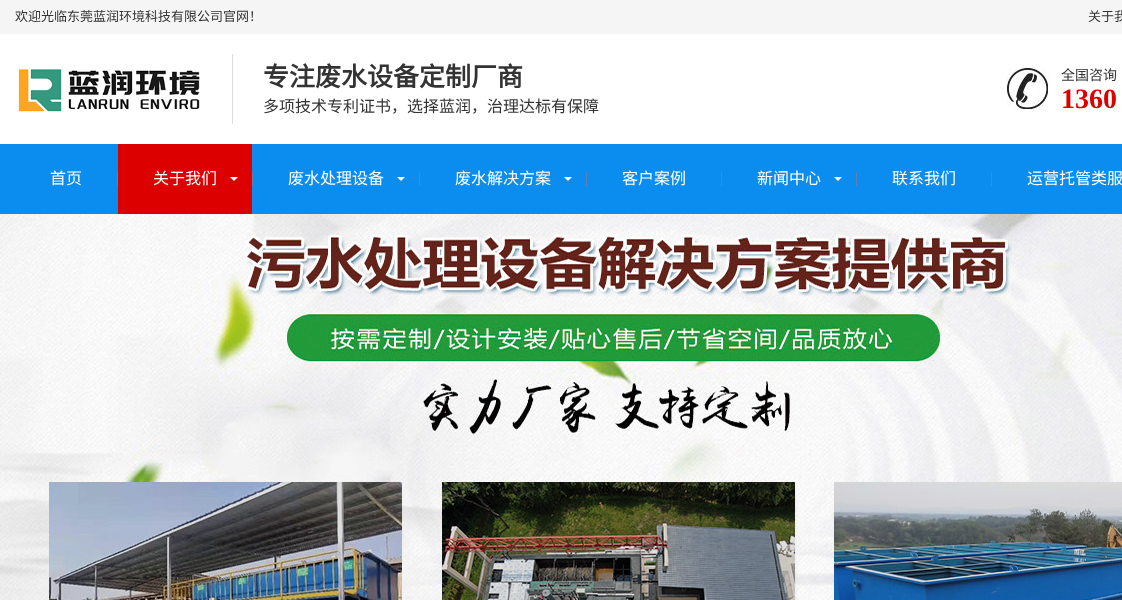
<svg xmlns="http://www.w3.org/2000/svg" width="1122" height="600">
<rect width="100%" height="100%" fill="#fff"/>
<rect width="1122" height="34" fill="#f5f5f5"/>
<text x="15" y="21" style="font-family:Noto Sans CJK SC;font-size:13px;fill:#333">欢迎光临东莞蓝润环境科技有限公司官网！</text>
<text x="1088" y="21" style="font-family:Noto Sans CJK SC;font-size:13px;fill:#333">关于我</text>
<image x="18" y="69" width="182" height="43" href="media/1.png"/>
<rect x="232" y="54" width="1" height="70" fill="#ddd"/>
<text x="263" y="86" style="font-family:Noto Sans CJK SC;font-size:26px;font-weight:bold;fill:#333">专注废水设备定制厂商</text>
<text x="263" y="112" style="font-family:Noto Sans CJK SC;font-size:16px;fill:#333">多项技术专利证书，选择蓝润，治理达标有保障</text>
<image x="1006" y="67" width="44" height="44" href="media/2.png"/>
<text x="1061" y="80" style="font-family:Noto Sans CJK SC;font-size:14px;fill:#333">全国咨询</text>
<text x="1061" y="108" style="font-family:Liberation Serif;font-size:28px;font-weight:bold;fill:#d00">1360</text>
<rect y="144" width="1122" height="70" fill="#0b8cef"/>
<rect x="117" y="172" width="1" height="14" fill="#617fb1"/>
<text x="50" y="184" style="font-family:Noto Sans CJK SC;font-size:16px;fill:#fff">首页</text>
<rect x="252" y="172" width="1" height="14" fill="#617fb1"/>
<rect x="118" y="144" width="134" height="70" fill="#d00"/>
<text x="153" y="184" style="font-family:Noto Sans CJK SC;font-size:16px;fill:#fff">关于我们</text>
<path d="M230 177h8l-4 4z" fill="#fff"/>
<rect x="419" y="172" width="1" height="14" fill="#617fb1"/>
<text x="288" y="184" style="font-family:Noto Sans CJK SC;font-size:16px;fill:#fff">废水处理设备</text>
<path d="M397 177h8l-4 4z" fill="#fff"/>
<rect x="586" y="172" width="1" height="14" fill="#617fb1"/>
<text x="455" y="184" style="font-family:Noto Sans CJK SC;font-size:16px;fill:#fff">废水解决方案</text>
<path d="M564 177h8l-4 4z" fill="#fff"/>
<rect x="721" y="172" width="1" height="14" fill="#617fb1"/>
<text x="622" y="184" style="font-family:Noto Sans CJK SC;font-size:16px;fill:#fff">客户案例</text>
<rect x="856" y="172" width="1" height="14" fill="#617fb1"/>
<text x="757" y="184" style="font-family:Noto Sans CJK SC;font-size:16px;fill:#fff">新闻中心</text>
<path d="M834 177h8l-4 4z" fill="#fff"/>
<rect x="991" y="172" width="1" height="14" fill="#617fb1"/>
<text x="892" y="184" style="font-family:Noto Sans CJK SC;font-size:16px;fill:#fff">联系我们</text>
<text x="1027" y="184" style="font-family:Noto Sans CJK SC;font-size:16px;fill:#fff">运营托管类服</text>
<image x="0" y="214" width="1122" height="386" href="media/3.png"/>
</svg>
